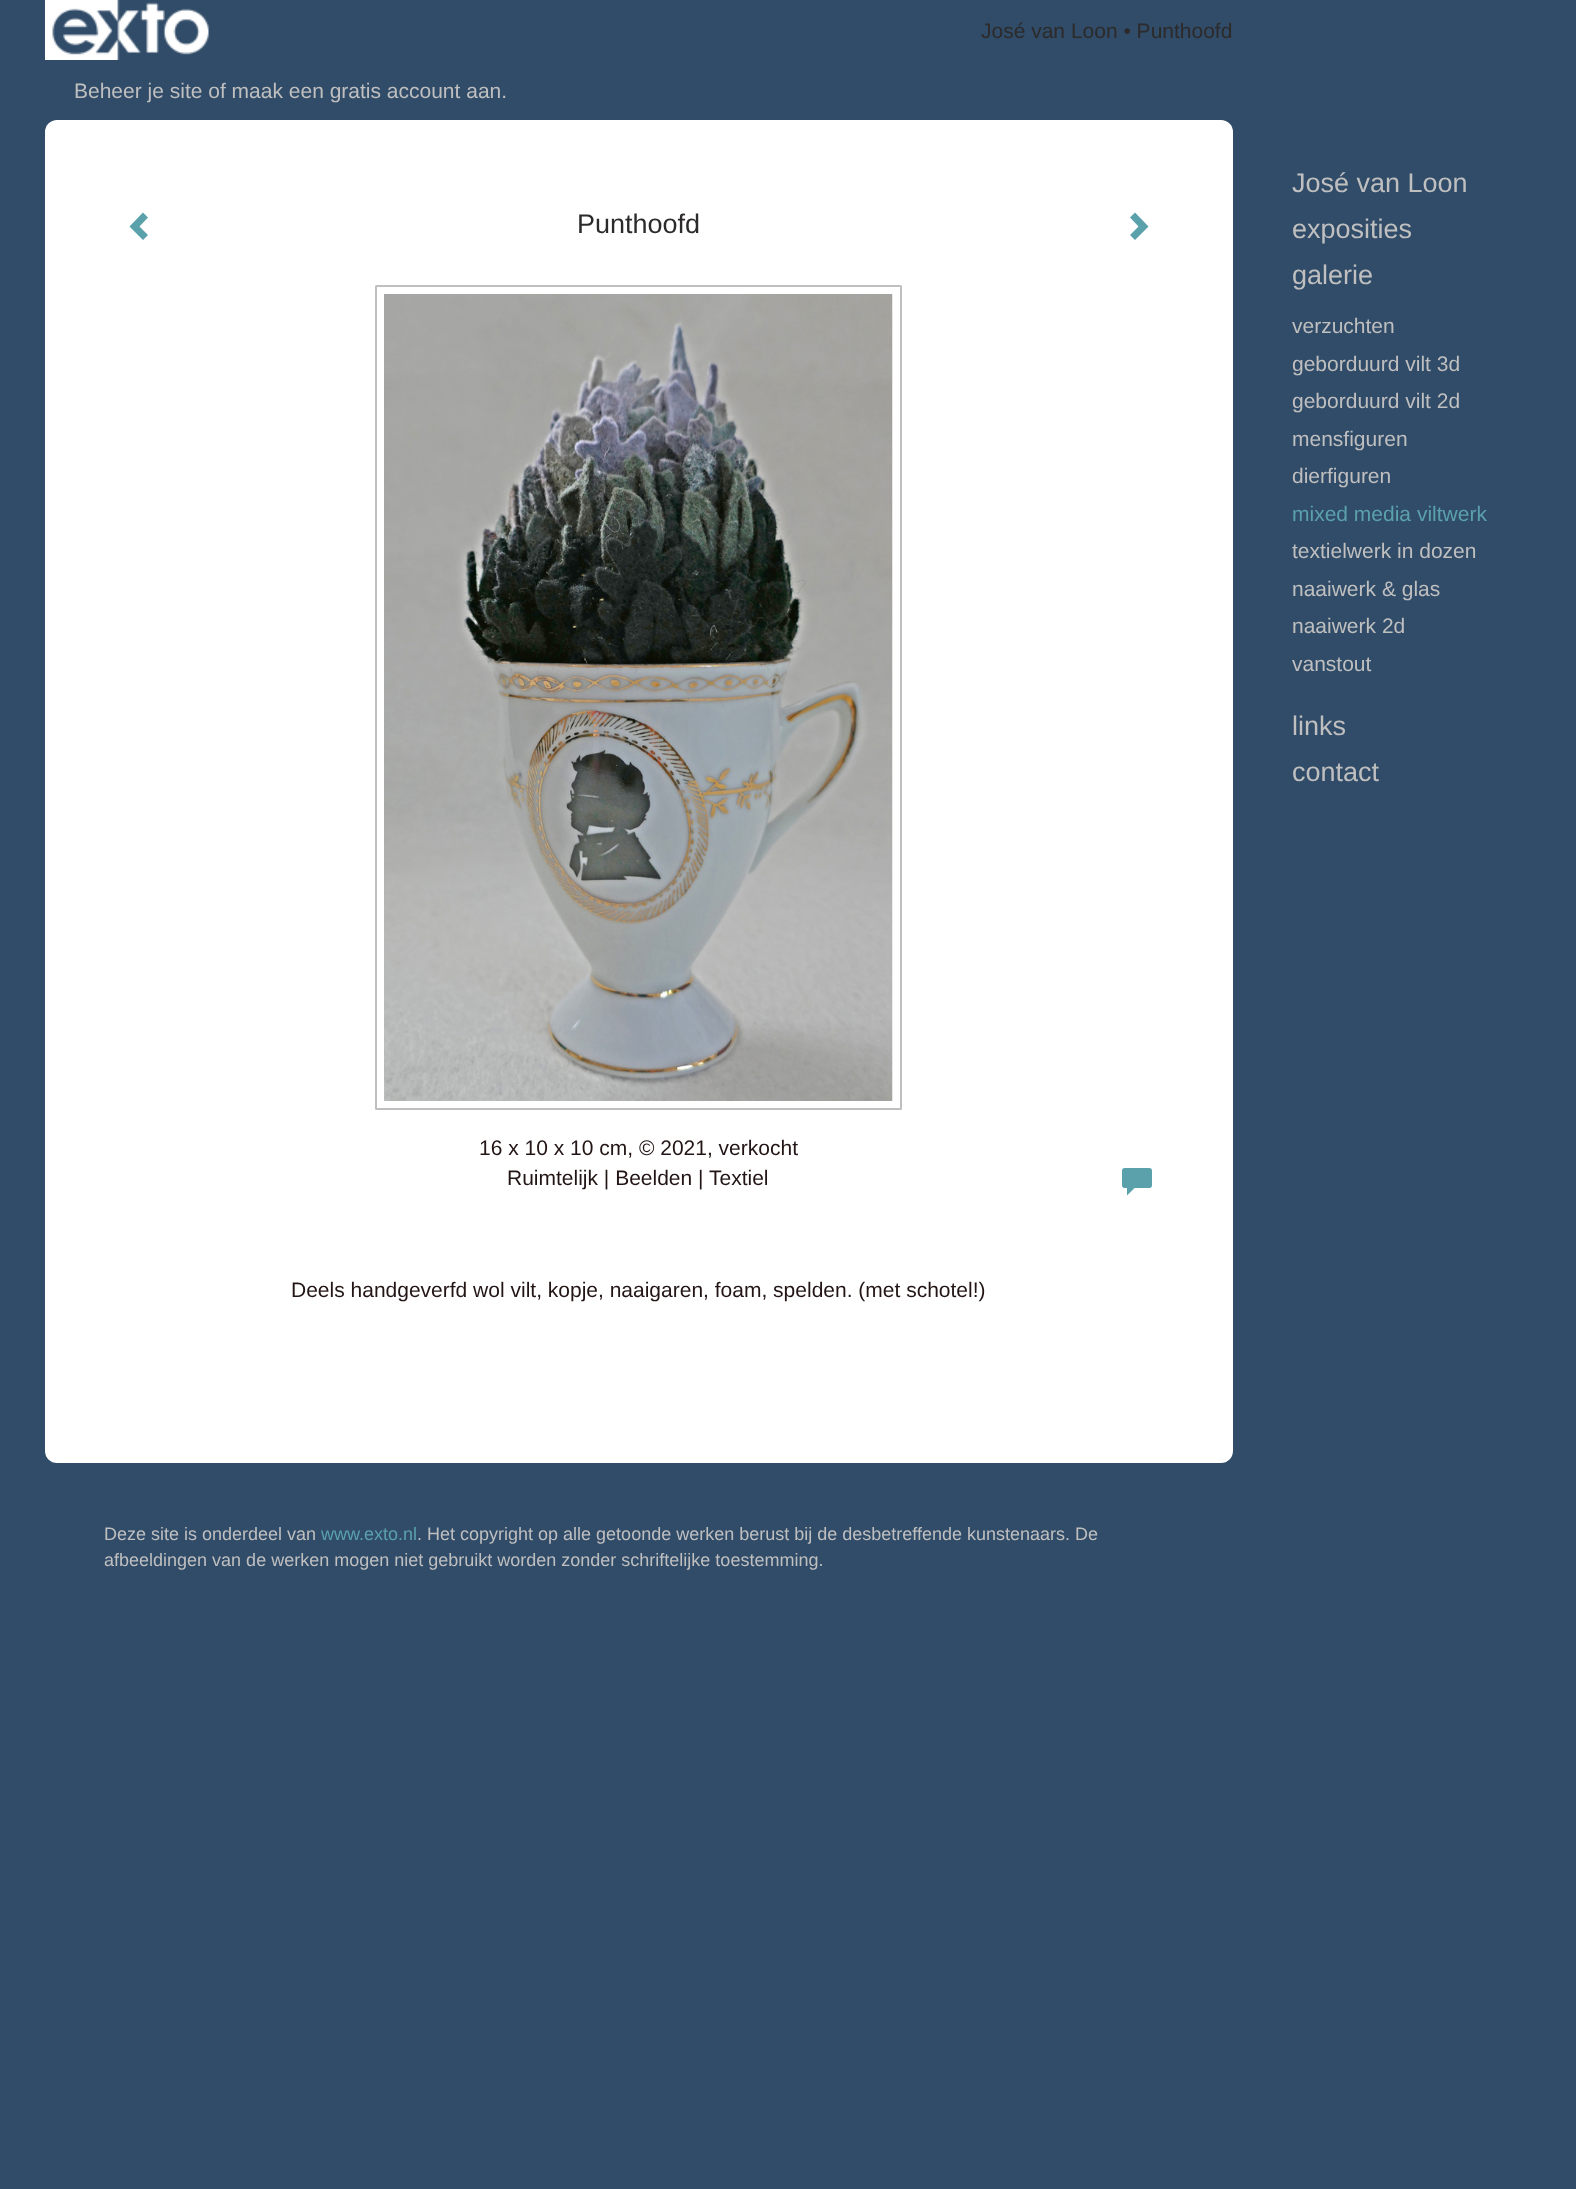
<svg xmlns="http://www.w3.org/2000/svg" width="1576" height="2189">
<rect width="100%" height="100%" fill="#314c68"/>
<image x="45" y="0" width="164" height="60" href="media/1.png"/>
<text x="981" y="38" style="font-family:Liberation Sans;font-size:21px;fill:#2c2a2a">José van Loon • Punthoofd</text>
<text x="74" y="98" style="font-family:Liberation Sans;font-size:21px;fill:#bfbfc0">Beheer je site of maak een gratis account aan.</text>
<rect x="45" y="120" width="1188" height="1343" rx="12" fill="#fff"/>
<path d="M148 217.5l-8.5 9l8.5 8.5l-5 5l-13.5-13.5l13.5-14z" fill="#5ba1ac"/>
<text x="577" y="233" style="font-family:Liberation Sans;font-size:27px;fill:#2c2a2a">Punthoofd</text>
<path d="M1148.5 226.5l-13.5 13.5l-5-5l8.5-8.5l-8.5-9l5-5z" fill="#5ba1ac"/>
<rect x="376" y="286" width="525" height="823" rx="0.5" fill="none" stroke="#bfbfc0" stroke-width="2"/>
<image x="384" y="294" width="509" height="807" href="media/2.png"/>
<text x="479" y="1155" style="font-family:Liberation Sans;font-size:21px;fill:#231515">16 x 10 x 10 cm, © 2021, verkocht</text>
<text x="507" y="1185" style="font-family:Liberation Sans;font-size:21px;fill:#231515">Ruimtelijk | Beelden | Textiel</text>
<image x="1122" y="1168" width="30" height="28" href="media/3.png"/>
<text x="291" y="1297" style="font-family:Liberation Sans;font-size:21px;fill:#231515">Deels handgeverfd wol vilt, kopje, naaigaren, foam, spelden. (met schotel!)</text>
<text x="1292" y="192" style="font-family:Liberation Sans;font-size:27px;fill:#bfbfc0">José van Loon</text>
<text x="1292" y="238" style="font-family:Liberation Sans;font-size:27px;fill:#bfbfc0">exposities</text>
<text x="1292" y="284" style="font-family:Liberation Sans;font-size:27px;fill:#bfbfc0">galerie</text>
<text x="1292" y="333" style="font-family:Liberation Sans;font-size:21px;fill:#bfbfc0">verzuchten</text>
<text x="1292" y="371" style="font-family:Liberation Sans;font-size:21px;fill:#bfbfc0">geborduurd vilt 3d</text>
<text x="1292" y="408" style="font-family:Liberation Sans;font-size:21px;fill:#bfbfc0">geborduurd vilt 2d</text>
<text x="1292" y="446" style="font-family:Liberation Sans;font-size:21px;fill:#bfbfc0">mensfiguren</text>
<text x="1292" y="483" style="font-family:Liberation Sans;font-size:21px;fill:#bfbfc0">dierfiguren</text>
<text x="1292" y="521" style="font-family:Liberation Sans;font-size:21px;fill:#5ba1ac">mixed media viltwerk</text>
<text x="1292" y="558" style="font-family:Liberation Sans;font-size:21px;fill:#bfbfc0">textielwerk in dozen</text>
<text x="1292" y="596" style="font-family:Liberation Sans;font-size:21px;fill:#bfbfc0">naaiwerk &amp; glas</text>
<text x="1292" y="633" style="font-family:Liberation Sans;font-size:21px;fill:#bfbfc0">naaiwerk 2d</text>
<text x="1292" y="671" style="font-family:Liberation Sans;font-size:21px;fill:#bfbfc0">vanstout</text>
<text x="1292" y="735" style="font-family:Liberation Sans;font-size:27px;fill:#bfbfc0">links</text>
<text x="1292" y="781" style="font-family:Liberation Sans;font-size:27px;fill:#bfbfc0">contact</text>
<text x="104" y="1540" style="font-family:Liberation Sans;font-size:18px;fill:#bfbfc0">Deze site is onderdeel van</text>
<text x="321" y="1540" style="font-family:Liberation Sans;font-size:18px;fill:#5ba1ac">www.exto.nl</text>
<text x="417" y="1540" style="font-family:Liberation Sans;font-size:18px;fill:#bfbfc0">. Het copyright op alle getoonde werken berust bij de desbetreffende kunstenaars. De</text>
<text x="104" y="1566" style="font-family:Liberation Sans;font-size:18px;fill:#bfbfc0">afbeeldingen van de werken mogen niet gebruikt worden zonder schriftelijke toestemming.</text>
</svg>
